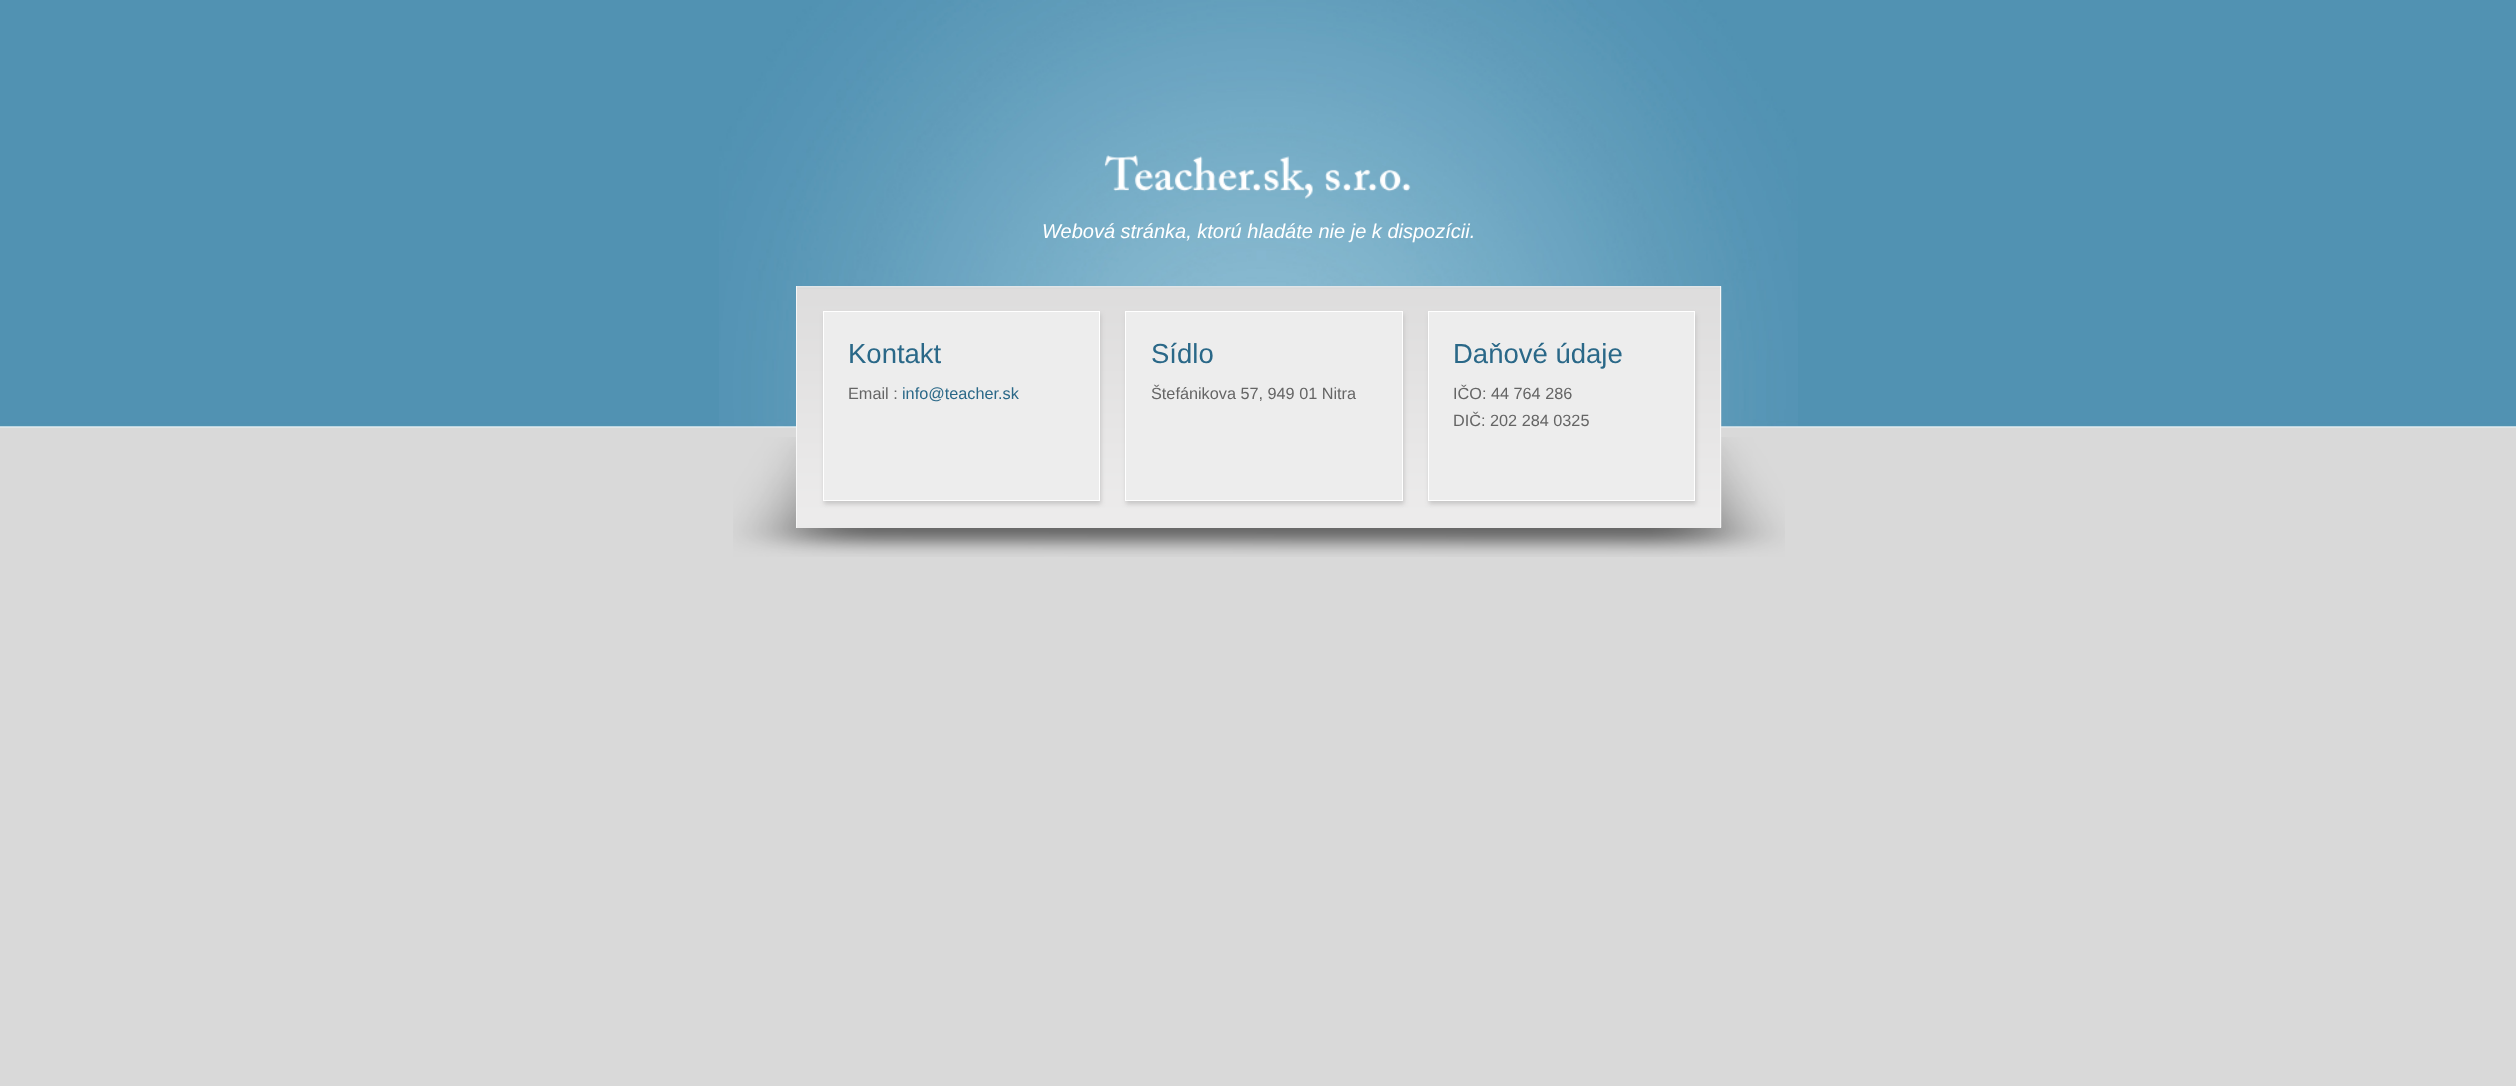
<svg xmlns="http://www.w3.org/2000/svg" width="2516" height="1086">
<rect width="100%" height="100%" fill="#d9d9d9"/>
<image x="0" y="0" width="2516" height="428" href="media/1.png"/>
<image x="719" y="0" width="1079" height="428" href="media/2.png"/>
<image x="1104" y="155" width="209" height="44" href="media/3.png"/>
<image x="1325" y="169" width="86" height="23" href="media/4.png"/>
<text x="1042" y="238" style="font-family:Liberation Sans;font-size:20px;font-style:italic;fill:#fff">Webová stránka, ktorú hladáte nie je k dispozícii.</text>
<image x="733" y="437" width="1052" height="120" href="media/5.png"/>
<rect x="797" y="286" width="923" height="242" fill="#ebebeb"/>
<image x="797" y="286" width="925" height="242" href="media/6.png"/>
<rect x="1720" y="286" width="1" height="242" fill="#f7f7f7"/>
<rect x="796" y="286" width="1" height="242" fill="#f7f7f7"/>
<rect x="824" y="314" width="277" height="190" fill="#c6c5c5" filter="blur(2px)"/>
<rect x="823.5" y="311.5" width="276" height="189" fill="#ededed" stroke="#fff"/>
<text x="848" y="363" style="font-family:Liberation Sans;font-size:27.5px;fill:#2a6888">Kontakt</text>
<text x="848" y="399" style="font-family:Liberation Sans;font-size:16.25px;fill:#656565">Email :</text>
<text x="902" y="399" style="font-family:Liberation Sans;font-size:16.25px;fill:#2a6888">info@teacher.sk</text>
<rect x="1126" y="314" width="278" height="190" fill="#c6c5c5" filter="blur(2px)"/>
<rect x="1125.5" y="311.5" width="277" height="189" fill="#ededed" stroke="#fff"/>
<text x="1151" y="363" style="font-family:Liberation Sans;font-size:27.5px;fill:#2a6888">Sídlo</text>
<text x="1151" y="399" style="font-family:Liberation Sans;font-size:16.25px;fill:#656565">Štefánikova 57, 949 01 Nitra</text>
<rect x="1429" y="314" width="267" height="190" fill="#c6c5c5" filter="blur(2px)"/>
<rect x="1428.5" y="311.5" width="266" height="189" fill="#ededed" stroke="#fff"/>
<text x="1453" y="363" style="font-family:Liberation Sans;font-size:27.5px;fill:#2a6888">Daňové údaje</text>
<text x="1453" y="399" style="font-family:Liberation Sans;font-size:16.25px;fill:#656565">IČO: 44 764 286</text>
<text x="1453" y="426" style="font-family:Liberation Sans;font-size:16.25px;fill:#656565">DIČ: 202 284 0325</text>
</svg>
